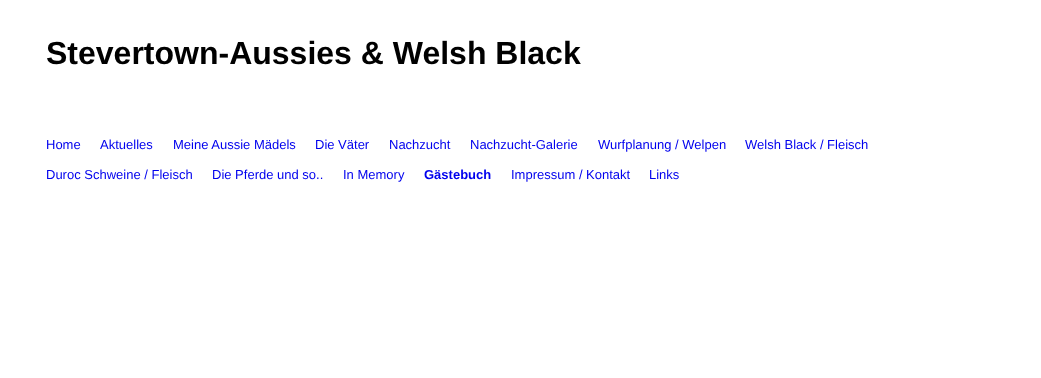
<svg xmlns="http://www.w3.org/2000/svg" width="1041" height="378">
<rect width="100%" height="100%" fill="#fff"/>
<text x="46" y="64" style="font-family:Liberation Sans;font-size:32px;font-weight:bold;fill:#000">Stevertown-Aussies &amp; Welsh Black</text>
<text x="46" y="149" style="font-family:Liberation Sans;font-size:13px;fill:#00e">Home</text>
<text x="100" y="149" style="font-family:Liberation Sans;font-size:13px;fill:#00e">Aktuelles</text>
<text x="173" y="149" style="font-family:Liberation Sans;font-size:13px;fill:#00e">Meine Aussie Mädels</text>
<text x="315" y="149" style="font-family:Liberation Sans;font-size:13px;fill:#00e">Die Väter</text>
<text x="389" y="149" style="font-family:Liberation Sans;font-size:13px;fill:#00e">Nachzucht</text>
<text x="470" y="149" style="font-family:Liberation Sans;font-size:13px;fill:#00e">Nachzucht-Galerie</text>
<text x="598" y="149" style="font-family:Liberation Sans;font-size:13px;fill:#00e">Wurfplanung / Welpen</text>
<text x="745" y="149" style="font-family:Liberation Sans;font-size:13px;fill:#00e">Welsh Black / Fleisch</text>
<text x="46" y="179" style="font-family:Liberation Sans;font-size:13px;fill:#00e">Duroc Schweine / Fleisch</text>
<text x="212" y="179" style="font-family:Liberation Sans;font-size:13px;fill:#00e">Die Pferde und so..</text>
<text x="343" y="179" style="font-family:Liberation Sans;font-size:13px;fill:#00e">In Memory</text>
<text x="424" y="179" style="font-family:Liberation Sans;font-size:13px;font-weight:bold;fill:#00e">Gästebuch</text>
<text x="511" y="179" style="font-family:Liberation Sans;font-size:13px;fill:#00e">Impressum / Kontakt</text>
<text x="649" y="179" style="font-family:Liberation Sans;font-size:13px;fill:#00e">Links</text>
</svg>
